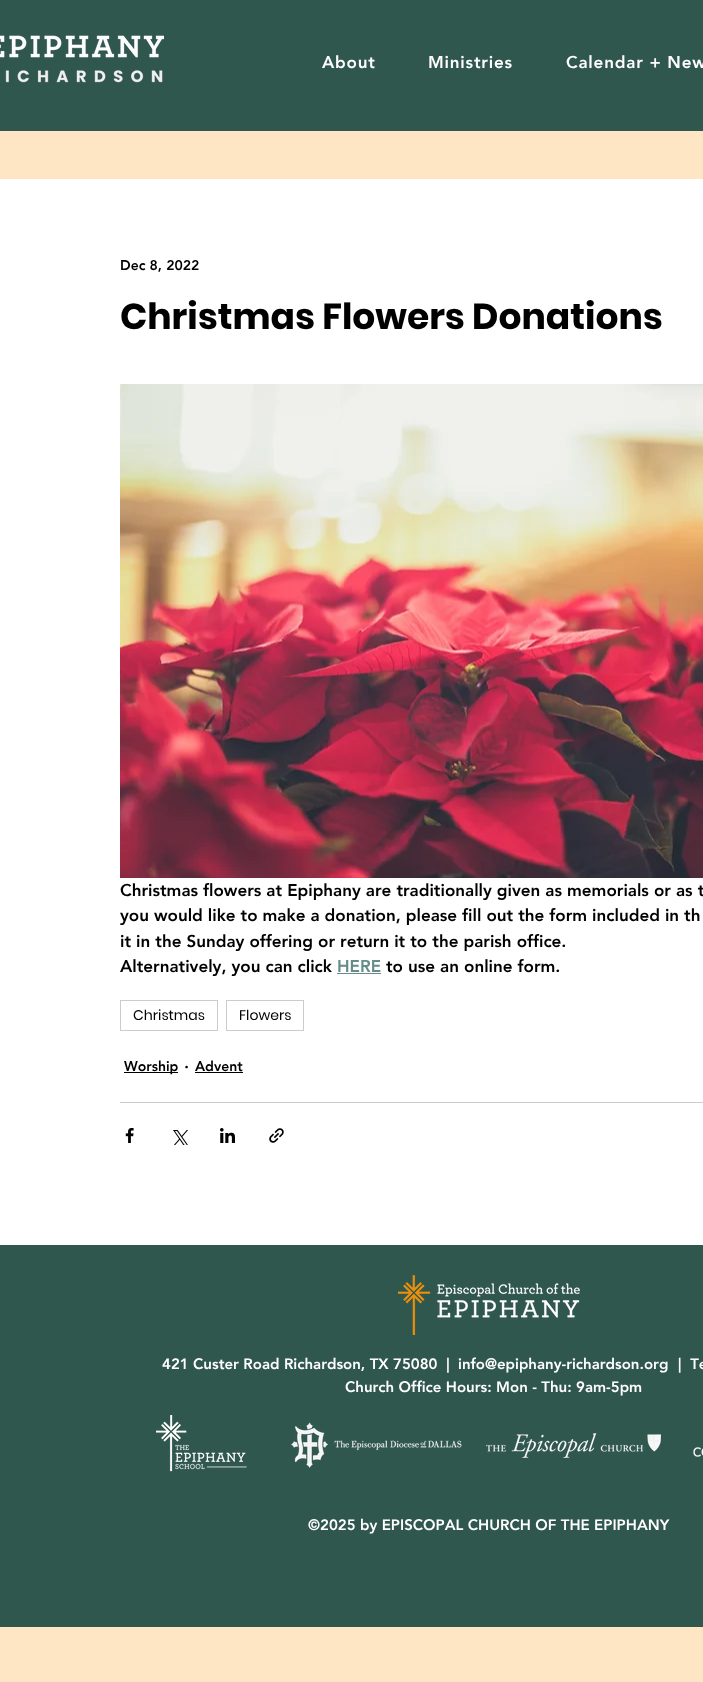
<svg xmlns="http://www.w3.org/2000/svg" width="703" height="1682">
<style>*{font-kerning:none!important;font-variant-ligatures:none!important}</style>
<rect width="100%" height="100%" fill="#fee6c4"/>
<rect width="703" height="131" fill="#30574e"/>
<image x="0" y="35" width="164" height="48" href="media/1.png"/>
<text x="322" y="68" style="font-family:'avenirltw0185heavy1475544';font-size:17px;font-weight:900;letter-spacing:0.8px;fill:#fff">About</text>
<text x="428" y="68" style="font-family:'avenirltw0185heavy1475544';font-size:17px;font-weight:900;letter-spacing:0.8px;fill:#fff">Ministries</text>
<text x="566" y="68" style="font-family:'avenirltw0185heavy1475544';font-size:17px;font-weight:900;letter-spacing:0.8px;fill:#fff">Calendar + New</text>
<rect y="179" width="703" height="1066" fill="#fff"/>
<text x="120" y="270" style="font-family:'avenirltw0185heavy1475544';font-size:14px;font-weight:900;fill:#000">Dec 8, 2022</text>
<text x="120" y="329" style="font-family:Poppins;font-size:36px;font-weight:bold;fill:#000">Christmas Flowers Donations</text>
<image x="120" y="384" width="583" height="494" href="media/2.png"/>
<text x="120" y="896" style="font-family:'avenirltw0185heavy1475544';font-size:17px;font-weight:900;fill:#000">Christmas flowers at Epiphany are traditionally given as memorials or as t</text>
<text x="120" y="921" style="font-family:'avenirltw0185heavy1475544';font-size:17px;font-weight:900;fill:#000">you would like to make a donation, please fill out the form included in th</text>
<text x="120" y="947" style="font-family:'avenirltw0185heavy1475544';font-size:17px;font-weight:900;fill:#000">it in the Sunday offering or return it to the parish office.</text>
<text x="120" y="972" style="font-family:'avenirltw0185heavy1475544';font-size:17px;font-weight:900;fill:#000">Alternatively, you can click</text>
<text x="337" y="972" style="font-family:'avenirltw0185heavy1475544';font-size:17px;font-weight:900;fill:#648c88">HERE</text>
<rect x="337" y="973" width="44" height="1" fill="#648c88"/>
<text x="386" y="972" style="font-family:'avenirltw0185heavy1475544';font-size:17px;font-weight:900;fill:#000">to use an online form.</text>
<rect x="120.5" y="1000.5" width="97" height="30" fill="none" stroke="#ccc"/>
<text x="133" y="1020" style="font-family:Poppins;font-size:14px;fill:#000">Christmas</text>
<rect x="226.5" y="1000.5" width="77" height="30" fill="none" stroke="#ccc"/>
<text x="239" y="1020" style="font-family:Poppins;font-size:14px;fill:#000">Flowers</text>
<rect x="124" y="1072" width="54" height="1" fill="#000"/>
<text x="124" y="1071" style="font-family:'avenirltw0185heavy1475544';font-size:14px;font-weight:900;fill:#000">Worship</text>
<text x="184" y="1072" style="font-family:'avenirltw0185heavy1475544';font-size:17px;font-weight:900;fill:#000">·</text>
<text x="195" y="1071" style="font-family:'avenirltw0185heavy1475544';font-size:14px;font-weight:900;fill:#000">Advent</text>
<rect x="195" y="1072" width="48" height="1" fill="#000"/>
<rect x="120" y="1102" width="583" height="1" fill="#ccc"/>
<image x="125" y="1128" width="9" height="15" href="media/3.png"/>
<image x="173" y="1130" width="15" height="15" href="media/4.png"/>
<image x="220" y="1128" width="15" height="15" href="media/5.png"/>
<image x="269" y="1128" width="15" height="15" href="media/6.png"/>
<rect y="1245" width="703" height="382" fill="#30574e"/>
<image x="398" y="1275" width="182" height="60" href="media/7.png"/>
<text x="162" y="1369" style="font-family:'avenirltw0185heavy1475544';font-size:15px;font-weight:900;fill:#fff" xml:space="preserve">421 Custer Road Richardson, TX 75080  |</text>
<text x="458" y="1369" style="font-family:'avenirltw0185heavy1475544';font-size:15px;font-weight:900;fill:#fff">info@epiphany-richardson.org</text>
<text x="678" y="1369" style="font-family:'avenirltw0185heavy1475544';font-size:15px;font-weight:900;fill:#fff" xml:space="preserve">|  Te</text>
<text x="345" y="1392" style="font-family:'avenirltw0185heavy1475544';font-size:15px;font-weight:900;fill:#fff">Church Office Hours: Mon - Thu: 9am-5pm</text>
<image x="156" y="1415" width="91" height="57" href="media/8.png"/>
<image x="291" y="1422" width="171" height="46" href="media/9.png"/>
<image x="486" y="1433" width="175" height="25" href="media/10.png"/>
<image x="693" y="1447" width="10" height="10" href="media/11.png"/>
<text x="308" y="1530" style="font-family:'avenirltw0185heavy1475544';font-size:15px;font-weight:900;fill:#fff">©2025 by EPISCOPAL CHURCH OF THE EPIPHANY</text>
</svg>
